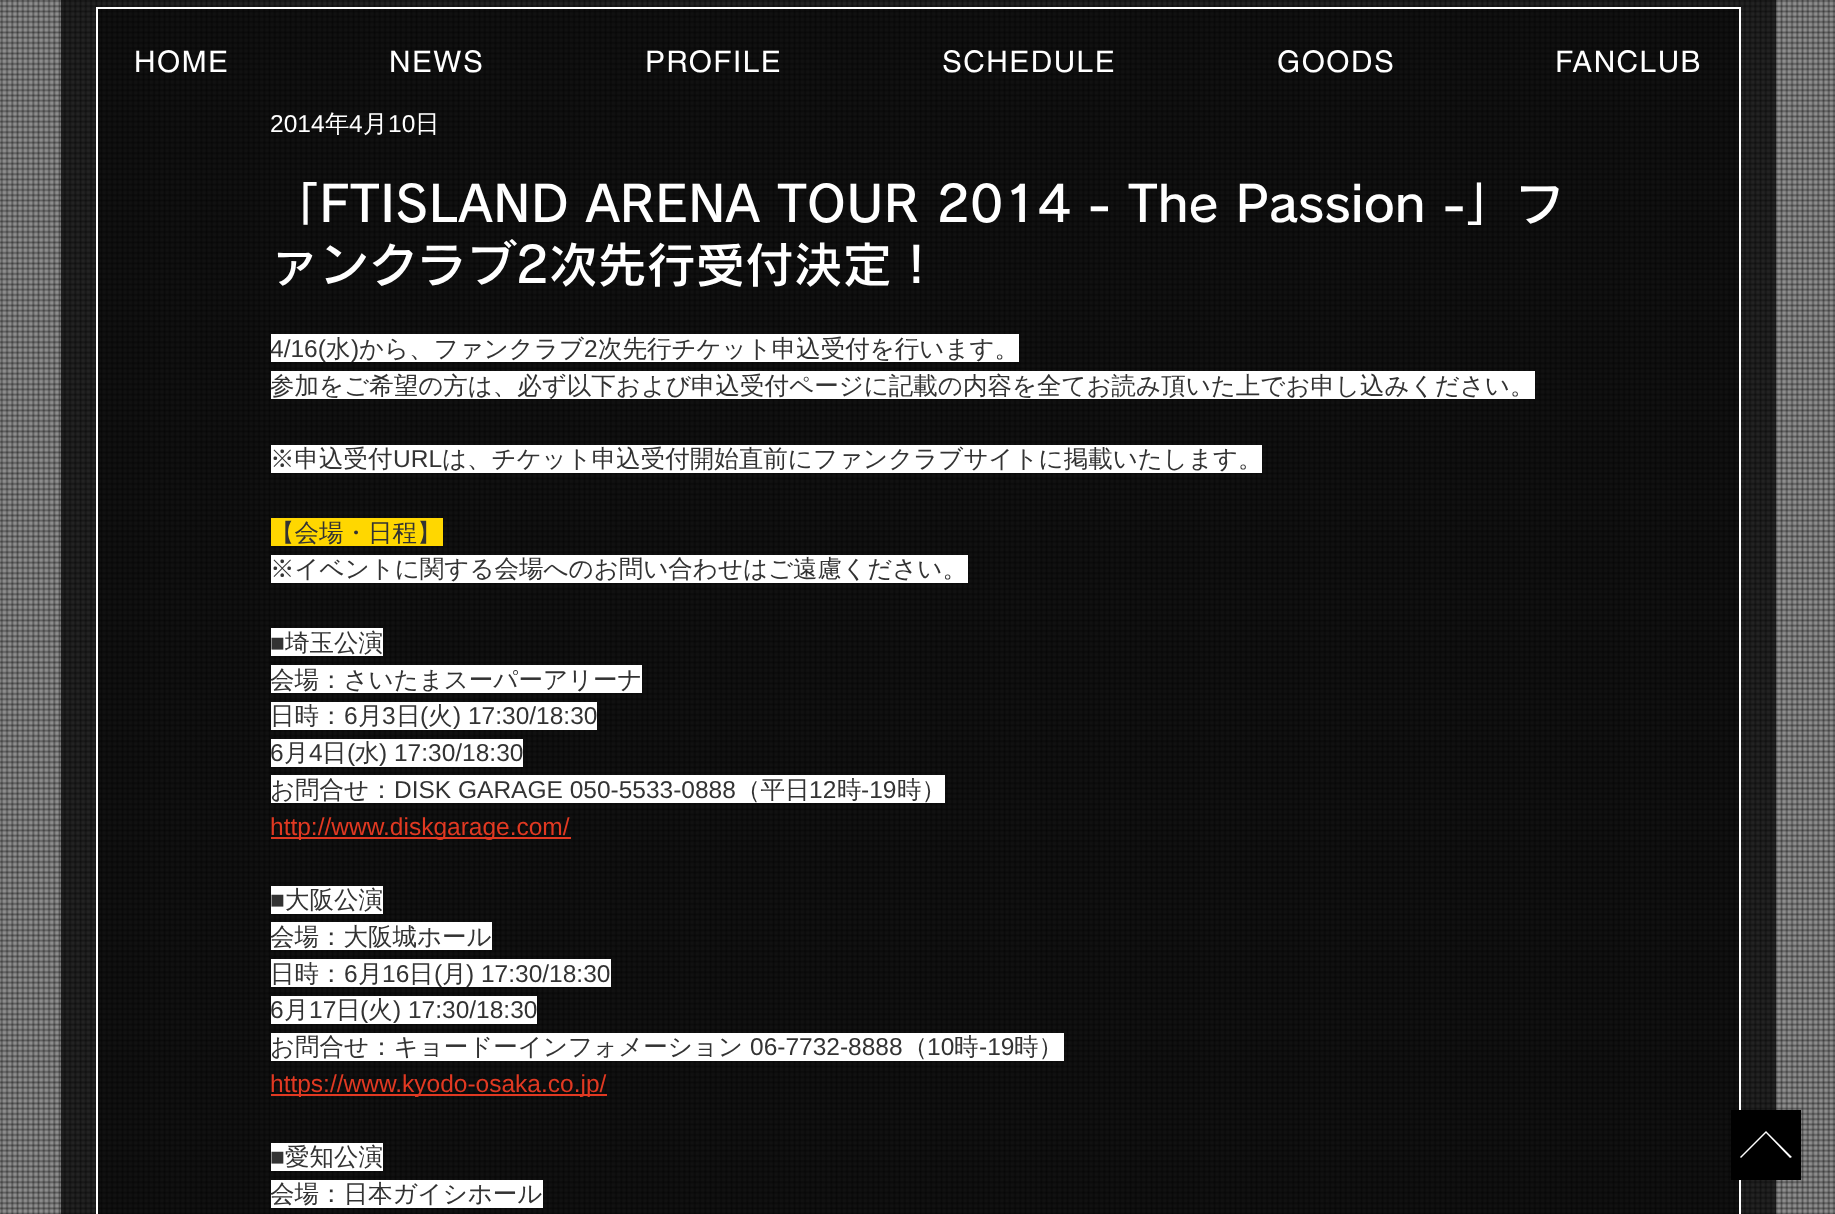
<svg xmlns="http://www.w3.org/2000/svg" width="1835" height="1214">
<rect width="100%" height="100%" fill="#8d8d8d"/>
<rect x="61" width="1715" height="1214" fill="#232323"/>
<image x="0" y="0" width="1835" height="1214" href="media/1.png"/>
<rect x="97" y="8" width="1643" height="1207" fill="#00000080" stroke="#fff" stroke-width="2"/>
<text x="134" y="72" style="font-family:helvetica;font-size:29.75px;letter-spacing:1.5px;fill:#fff">HOME</text>
<text x="389" y="72" style="font-family:helvetica;font-size:29.75px;letter-spacing:1.5px;fill:#fff">NEWS</text>
<text x="645" y="72" style="font-family:helvetica;font-size:29.75px;letter-spacing:1.5px;fill:#fff">PROFILE</text>
<text x="942" y="72" style="font-family:helvetica;font-size:29.75px;letter-spacing:1.5px;fill:#fff">SCHEDULE</text>
<text x="1277" y="72" style="font-family:helvetica;font-size:29.75px;letter-spacing:1.5px;fill:#fff">GOODS</text>
<text x="1555" y="72" style="font-family:helvetica;font-size:29.75px;letter-spacing:1.5px;fill:#fff">FANCLUB</text>
<text x="270" y="132" style="font-family:Liberation Sans;font-size:24.5px;fill:#fff">2014</text>
<text x="325" y="132" style="font-family:WenQuanYi Zen Hei;font-size:24.5px;font-weight:500;fill:#fff">年</text>
<text x="349" y="132" style="font-family:Liberation Sans;font-size:24.5px;fill:#fff">4</text>
<text x="363" y="132" style="font-family:WenQuanYi Zen Hei;font-size:24.5px;font-weight:500;fill:#fff">月</text>
<text x="388" y="132" style="font-family:Liberation Sans;font-size:24.5px;fill:#fff">10</text>
<text x="415" y="132" style="font-family:WenQuanYi Zen Hei;font-size:24.5px;font-weight:500;fill:#fff">日</text>
<text x="270" y="222" style="font-family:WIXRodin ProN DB;font-size:49px;font-weight:600;fill:#fff">「FTISLAND ARENA TOUR 2014 - The Passion -」フ</text>
<text x="270" y="283" style="font-family:WIXRodin ProN DB;font-size:49px;font-weight:600;fill:#fff">ァンクラブ2次先行受付決定！</text>
<rect x="271" y="334" width="748" height="28" fill="#fff"/>
<text x="270" y="357" style="font-family:Liberation Sans;font-size:24.5px;fill:#333">4/16(</text>
<text x="326" y="357" style="font-family:WenQuanYi Zen Hei;font-size:24.5px;font-weight:500;fill:#333">水</text>
<text x="351" y="357" style="font-family:Liberation Sans;font-size:24.5px;fill:#333">)</text>
<text x="359" y="357" style="font-family:WenQuanYi Zen Hei;font-size:24.5px;font-weight:500;fill:#333">から、ファンクラブ</text>
<text x="584" y="357" style="font-family:Liberation Sans;font-size:24.5px;fill:#333">2</text>
<text x="598" y="357" style="font-family:WenQuanYi Zen Hei;font-size:24.5px;font-weight:500;fill:#333">次先行チケット申込受付を行います。</text>
<rect x="271" y="371" width="1264" height="28" fill="#fff"/>
<text x="270" y="394" style="font-family:WenQuanYi Zen Hei;font-size:24.5px;font-weight:500;fill:#333">参加をご希望の方は、必ず以下および申込受付ページに記載の内容を全てお読み頂いた上でお申し込みください。</text>
<rect x="271" y="445" width="991" height="28" fill="#fff"/>
<text x="270" y="467" style="font-family:WenQuanYi Zen Hei;font-size:24.5px;font-weight:500;fill:#333">※申込受付</text>
<text x="393" y="467" style="font-family:Liberation Sans;font-size:24.5px;fill:#333">URL</text>
<text x="442" y="467" style="font-family:WenQuanYi Zen Hei;font-size:24.5px;font-weight:500;fill:#333">は、チケット申込受付開始直前にファンクラブサイトに掲載いたします。</text>
<rect x="271" y="518" width="172" height="28" fill="#ffd700"/>
<text x="270" y="541" style="font-family:WenQuanYi Zen Hei;font-size:24.5px;font-weight:500;fill:#333">【会場・日程】</text>
<rect x="271" y="555" width="697" height="28" fill="#fff"/>
<text x="270" y="577" style="font-family:WenQuanYi Zen Hei;font-size:24.5px;font-weight:500;fill:#333">※イベントに関する会場へのお問い合わせはご遠慮ください。</text>
<rect x="271" y="628" width="112" height="28" fill="#fff"/>
<text x="270" y="651" style="font-family:Liberation Sans;font-size:24.5px;fill:#333">■</text>
<text x="285" y="651" style="font-family:WenQuanYi Zen Hei;font-size:24.5px;font-weight:500;fill:#333">埼玉公演</text>
<rect x="271" y="665" width="371" height="28" fill="#fff"/>
<text x="270" y="688" style="font-family:WenQuanYi Zen Hei;font-size:24.5px;font-weight:500;fill:#333">会場：さいたまスーパーアリーナ</text>
<rect x="271" y="702" width="326" height="28" fill="#fff"/>
<text x="270" y="724" style="font-family:WenQuanYi Zen Hei;font-size:24.5px;font-weight:500;fill:#333">日時：</text>
<text x="344" y="724" style="font-family:Liberation Sans;font-size:24.5px;fill:#333">6</text>
<text x="358" y="724" style="font-family:WenQuanYi Zen Hei;font-size:24.5px;font-weight:500;fill:#333">月</text>
<text x="382" y="724" style="font-family:Liberation Sans;font-size:24.5px;fill:#333">3</text>
<text x="396" y="724" style="font-family:WenQuanYi Zen Hei;font-size:24.5px;font-weight:500;fill:#333">日</text>
<text x="420" y="724" style="font-family:Liberation Sans;font-size:24.5px;fill:#333">(</text>
<text x="428" y="724" style="font-family:WenQuanYi Zen Hei;font-size:24.5px;font-weight:500;fill:#333">火</text>
<text x="453" y="724" style="font-family:Liberation Sans;font-size:24.5px;fill:#333">) 17:30/18:30</text>
<rect x="271" y="739" width="252" height="28" fill="#fff"/>
<text x="270" y="761" style="font-family:Liberation Sans;font-size:24.5px;fill:#333">6</text>
<text x="284" y="761" style="font-family:WenQuanYi Zen Hei;font-size:24.5px;font-weight:500;fill:#333">月</text>
<text x="309" y="761" style="font-family:Liberation Sans;font-size:24.5px;fill:#333">4</text>
<text x="322" y="761" style="font-family:WenQuanYi Zen Hei;font-size:24.5px;font-weight:500;fill:#333">日</text>
<text x="347" y="761" style="font-family:Liberation Sans;font-size:24.5px;fill:#333">(</text>
<text x="355" y="761" style="font-family:WenQuanYi Zen Hei;font-size:24.5px;font-weight:500;fill:#333">水</text>
<text x="379" y="761" style="font-family:Liberation Sans;font-size:24.5px;fill:#333">) 17:30/18:30</text>
<rect x="271" y="775" width="674" height="28" fill="#fff"/>
<text x="270" y="798" style="font-family:WenQuanYi Zen Hei;font-size:24.5px;font-weight:500;fill:#333">お問合せ：</text>
<text x="394" y="798" style="font-family:Liberation Sans;font-size:24.5px;fill:#333">DISK GARAGE 050-5533-0888</text>
<text x="736" y="798" style="font-family:WenQuanYi Zen Hei;font-size:24.5px;font-weight:500;fill:#333">（平日</text>
<text x="809" y="798" style="font-family:Liberation Sans;font-size:24.5px;fill:#333">12</text>
<text x="837" y="798" style="font-family:WenQuanYi Zen Hei;font-size:24.5px;font-weight:500;fill:#333">時</text>
<text x="861" y="798" style="font-family:Liberation Sans;font-size:24.5px;fill:#333">-19</text>
<text x="897" y="798" style="font-family:WenQuanYi Zen Hei;font-size:24.5px;font-weight:500;fill:#333">時）</text>
<rect x="271" y="837" width="300" height="2" fill="#e13922"/>
<text x="270" y="835" style="font-family:Liberation Sans;font-size:24.5px;fill:#e13922">http://www.diskgarage.com/</text>
<rect x="271" y="886" width="112" height="28" fill="#fff"/>
<text x="270" y="908" style="font-family:Liberation Sans;font-size:24.5px;fill:#333">■</text>
<text x="285" y="908" style="font-family:WenQuanYi Zen Hei;font-size:24.5px;font-weight:500;fill:#333">大阪公演</text>
<rect x="271" y="922" width="221" height="28" fill="#fff"/>
<text x="270" y="945" style="font-family:WenQuanYi Zen Hei;font-size:24.5px;font-weight:500;fill:#333">会場：大阪城ホール</text>
<rect x="271" y="959" width="340" height="28" fill="#fff"/>
<text x="270" y="982" style="font-family:WenQuanYi Zen Hei;font-size:24.5px;font-weight:500;fill:#333">日時：</text>
<text x="344" y="982" style="font-family:Liberation Sans;font-size:24.5px;fill:#333">6</text>
<text x="358" y="982" style="font-family:WenQuanYi Zen Hei;font-size:24.5px;font-weight:500;fill:#333">月</text>
<text x="382" y="982" style="font-family:Liberation Sans;font-size:24.5px;fill:#333">16</text>
<text x="409" y="982" style="font-family:WenQuanYi Zen Hei;font-size:24.5px;font-weight:500;fill:#333">日</text>
<text x="434" y="982" style="font-family:Liberation Sans;font-size:24.5px;fill:#333">(</text>
<text x="442" y="982" style="font-family:WenQuanYi Zen Hei;font-size:24.5px;font-weight:500;fill:#333">月</text>
<text x="466" y="982" style="font-family:Liberation Sans;font-size:24.5px;fill:#333">) 17:30/18:30</text>
<rect x="271" y="996" width="266" height="28" fill="#fff"/>
<text x="270" y="1018" style="font-family:Liberation Sans;font-size:24.5px;fill:#333">6</text>
<text x="284" y="1018" style="font-family:WenQuanYi Zen Hei;font-size:24.5px;font-weight:500;fill:#333">月</text>
<text x="309" y="1018" style="font-family:Liberation Sans;font-size:24.5px;fill:#333">17</text>
<text x="336" y="1018" style="font-family:WenQuanYi Zen Hei;font-size:24.5px;font-weight:500;fill:#333">日</text>
<text x="360" y="1018" style="font-family:Liberation Sans;font-size:24.5px;fill:#333">(</text>
<text x="368" y="1018" style="font-family:WenQuanYi Zen Hei;font-size:24.5px;font-weight:500;fill:#333">火</text>
<text x="393" y="1018" style="font-family:Liberation Sans;font-size:24.5px;fill:#333">) 17:30/18:30</text>
<rect x="271" y="1033" width="793" height="28" fill="#fff"/>
<text x="270" y="1055" style="font-family:WenQuanYi Zen Hei;font-size:24.5px;font-weight:500;fill:#333">お問合せ：キョードーインフォメーション</text>
<text x="750" y="1055" style="font-family:Liberation Sans;font-size:24.5px;fill:#333">06-7732-8888</text>
<text x="903" y="1055" style="font-family:WenQuanYi Zen Hei;font-size:24.5px;font-weight:500;fill:#333">（</text>
<text x="927" y="1055" style="font-family:Liberation Sans;font-size:24.5px;fill:#333">10</text>
<text x="954" y="1055" style="font-family:WenQuanYi Zen Hei;font-size:24.5px;font-weight:500;fill:#333">時</text>
<text x="979" y="1055" style="font-family:Liberation Sans;font-size:24.5px;fill:#333">-19</text>
<text x="1014" y="1055" style="font-family:WenQuanYi Zen Hei;font-size:24.5px;font-weight:500;fill:#333">時）</text>
<rect x="271" y="1094" width="336" height="2" fill="#e13922"/>
<text x="270" y="1092" style="font-family:Liberation Sans;font-size:24.5px;fill:#e13922">https://www.kyodo-osaka.co.jp/</text>
<rect x="271" y="1143" width="112" height="28" fill="#fff"/>
<text x="270" y="1165" style="font-family:Liberation Sans;font-size:24.5px;fill:#333">■</text>
<text x="285" y="1165" style="font-family:WenQuanYi Zen Hei;font-size:24.5px;font-weight:500;fill:#333">愛知公演</text>
<rect x="271" y="1180" width="272" height="28" fill="#fff"/>
<text x="270" y="1202" style="font-family:WenQuanYi Zen Hei;font-size:24.5px;font-weight:500;fill:#333">会場：日本ガイシホール</text>
<rect x="1731" y="1110" width="70" height="70" fill="#000"/>
<path d="M1790 1158l-24-25l-25 25l-1-1l26-26l26 26z" fill="#fff"/>
</svg>
